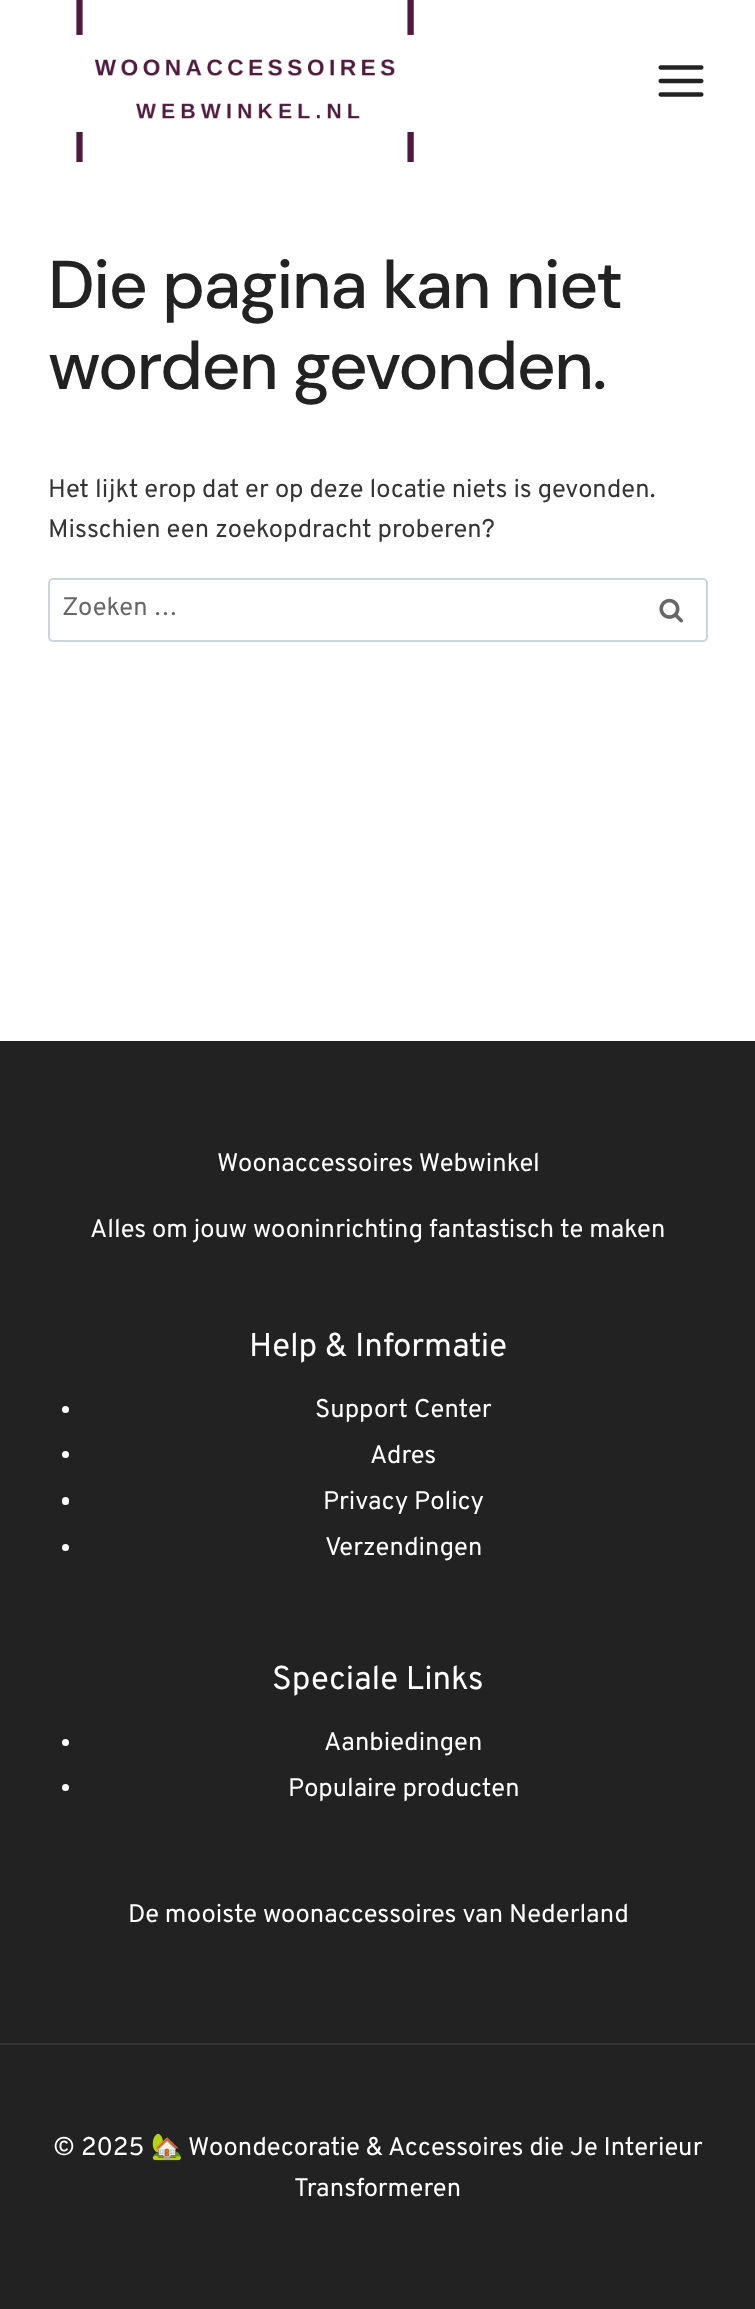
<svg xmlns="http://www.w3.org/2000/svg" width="755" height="2309">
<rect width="100%" height="100%" fill="#fff"/>
<image x="76" y="0" width="338" height="162" href="media/1.png"/>
<image x="658" y="65" width="46" height="32" href="media/2.png"/>
<text x="48" y="308" style="font-family:DM Sans;font-size:67.5px;font-weight:500;letter-spacing:-1.5px;fill:#222">Die pagina kan niet</text>
<text x="48" y="389" style="font-family:DM Sans;font-size:67.5px;font-weight:500;letter-spacing:-1.5px;fill:#222">worden gevonden.</text>
<text x="48" y="497" style="font-family:Overpass;font-size:25.5px;fill:#353535">Het lijkt erop dat er op deze locatie niets is gevonden.</text>
<text x="48" y="537" style="font-family:Overpass;font-size:25.5px;fill:#353535">Misschien een zoekopdracht proberen?</text>
<rect x="49" y="579" width="658" height="62" rx="4" fill="none" stroke="#cbd5e0" stroke-width="2"/>
<text x="62" y="615" style="font-family:Overpass;font-size:25.5px;fill:#676767">Zoeken …</text>
<image x="659" y="598" width="25" height="25" href="media/3.png"/>
<rect y="1041" width="755" height="1268" fill="#222"/>
<rect y="2043" width="755" height="2" fill="#353535"/>
<text x="217" y="1171" style="font-family:Overpass;font-size:25.5px;fill:#fff">Woonaccessoires Webwinkel</text>
<text x="90" y="1237" style="font-family:Overpass;font-size:25.5px;fill:#fff">Alles om jouw wooninrichting fantastisch te maken</text>
<text x="249" y="1356" style="font-family:Overpass;font-size:33px;fill:#fff">Help &amp; Informatie</text>
<circle cx="65.5" cy="1409.5" r="3.5" fill="#fff"/>
<text x="315" y="1417" style="font-family:Overpass;font-size:25.5px;fill:#fff">Support Center</text>
<circle cx="65.5" cy="1454.5" r="3.5" fill="#fff"/>
<text x="370" y="1463" style="font-family:Overpass;font-size:25.5px;fill:#fff">Adres</text>
<rect x="62" y="1497" width="7" height="8" rx="3.5" fill="#fff"/>
<text x="323" y="1509" style="font-family:Overpass;font-size:25.5px;fill:#fff">Privacy Policy</text>
<circle cx="65.5" cy="1547.5" r="3.5" fill="#fff"/>
<text x="325" y="1555" style="font-family:Overpass;font-size:25.5px;fill:#fff">Verzendingen</text>
<text x="272" y="1689" style="font-family:Overpass;font-size:33px;fill:#fff">Speciale Links</text>
<circle cx="65.5" cy="1742.5" r="3.5" fill="#fff"/>
<text x="324" y="1750" style="font-family:Overpass;font-size:25.5px;fill:#fff">Aanbiedingen</text>
<circle cx="65.5" cy="1787.5" r="3.5" fill="#fff"/>
<text x="288" y="1796" style="font-family:Overpass;font-size:25.5px;fill:#fff">Populaire producten</text>
<text x="128" y="1922" style="font-family:Overpass;font-size:25.5px;fill:#fff">De mooiste woonaccessoires van Nederland</text>
<text x="53" y="2155" style="font-family:Overpass;font-size:25.5px;fill:#fff">© 2025</text>
<text x="151" y="2155" style="font-family:Noto Color Emoji;font-size:25.5px;fill:#fff">🏡</text>
<text x="188" y="2155" style="font-family:Overpass;font-size:25.5px;fill:#fff">Woondecoratie &amp; Accessoires die Je Interieur</text>
<text x="294" y="2196" style="font-family:Overpass;font-size:25.5px;fill:#fff">Transformeren</text>
</svg>
